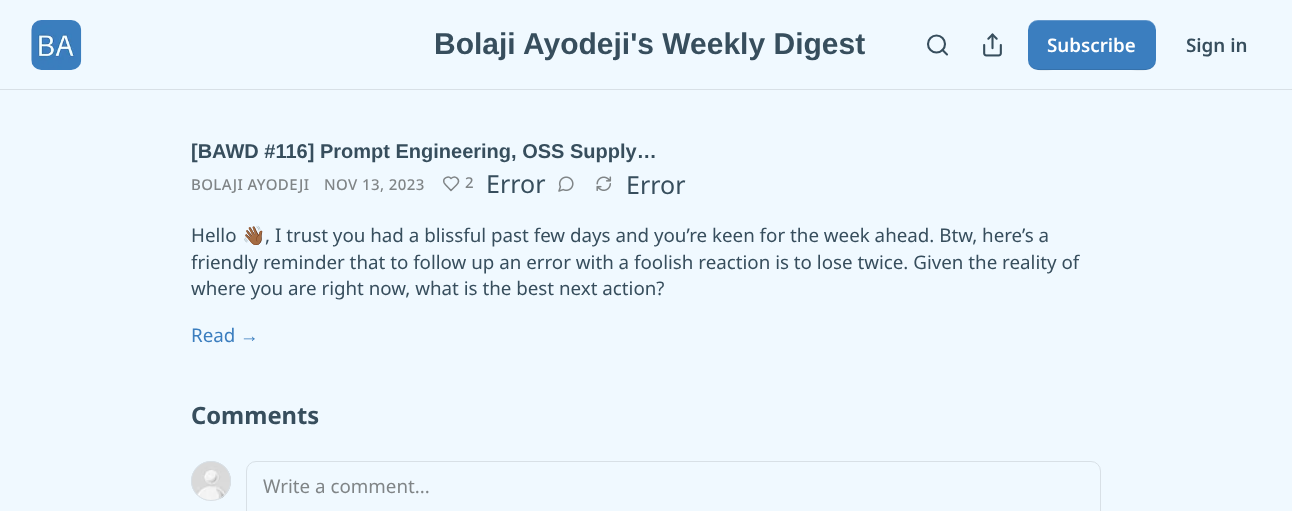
<svg xmlns="http://www.w3.org/2000/svg" width="1292" height="511">
<rect width="100%" height="100%" fill="#f0f9ff"/>
<rect y="89" width="1292" height="1" fill="#d8e0e6"/>
<rect x="31" y="20" width="50" height="50" rx="10" fill="#fff"/>
<image x="31" y="20" width="51" height="50" href="media/1.png"/>
<text x="434" y="54" style="font-family:Liberation Sans;font-size:30px;font-weight:bold;fill:#374e5d">Bolaji Ayodeji's Weekly Digest</text>
<circle cx="936.5" cy="44" r="8.5" fill="none" stroke="#374e5d" stroke-width="2.1"/>
<path d="M947 54.5l-4.5-4.5" fill="none" stroke="#374e5d" stroke-width="2.1" stroke-linecap="round" stroke-linejoin="round"/>
<image x="983" y="33" width="19" height="24" href="media/2.png"/>
<rect x="1028" y="20" width="128" height="50" rx="10" fill="#3b7ebf"/>
<path d="M1028 59c0 15 18 11 28 11h72c10 0 28 4 28-11c0 5-4 10-10 10h-108c-6 0-10-5-10-10z" fill="#0000001a"/>
<path d="M1038 21h108c6 0 10 5 10 10c0-15-18-11-28-11h-72c-10 0-28-4-28 11c0-5 4-10 10-10z" fill="#ffffff33"/>
<text x="1047" y="52" style="font-family:Noto Sans;font-size:18.75px;font-weight:600;fill:#fff">Subscribe</text>
<text x="1186" y="52" style="font-family:Noto Sans;font-size:18.75px;font-weight:600;fill:#374e5d">Sign in</text>
<text x="191" y="158" style="font-family:Liberation Sans;font-size:20px;font-weight:bold;fill:#374e5d">[BAWD #116] Prompt Engineering, OSS Supply…</text>
<text x="191" y="190" style="font-family:Noto Sans;font-size:15px;font-weight:500;letter-spacing:0.4px;fill:#808587">BOLAJI AYODEJI</text>
<text x="324" y="190" style="font-family:Noto Sans;font-size:15px;font-weight:500;letter-spacing:0.4px;fill:#808587">NOV 13, 2023</text>
<path d="M456.5 185c5-5-1-10.5-5.5-6.5c-2.5-3-8.5-.5-7 4c1 2.5 5.5 6 7 8z" fill="none" stroke="#808587" stroke-width="1.5" stroke-linecap="round" stroke-linejoin="round"/>
<text x="465" y="188" style="font-family:Noto Sans;font-size:15px;font-weight:500;letter-spacing:0.4px;fill:#808587">2</text>
<text x="486" y="193" style="font-family:Noto Sans;font-size:25px;fill:#374e5d">Error</text>
<image x="558" y="176" width="16" height="16" href="media/3.png"/>
<image x="596" y="176" width="16" height="15" href="media/4.png"/>
<text x="626" y="194" style="font-family:Noto Sans;font-size:25px;fill:#374e5d">Error</text>
<text x="191" y="242" style="font-family:Noto Sans;font-size:18.75px;fill:#374e5d">Hello</text>
<text x="242" y="242" style="font-family:Noto Color Emoji;font-size:18.75px;fill:#374e5d">👋🏾</text>
<text x="265" y="242" style="font-family:Noto Sans;font-size:18.75px;fill:#374e5d">, I trust you had a blissful past few days and you’re keen for the week ahead. Btw, here’s a</text>
<text x="191" y="269" style="font-family:Noto Sans;font-size:18.75px;fill:#374e5d">friendly reminder that to follow up an error with a foolish reaction is to lose twice. Given the reality of</text>
<text x="191" y="295" style="font-family:Noto Sans;font-size:18.75px;fill:#374e5d">where you are right now, what is the best next action?</text>
<text x="191" y="342" style="font-family:Noto Sans;font-size:18.75px;fill:#3b7ebf">Read</text>
<text x="240" y="342" style="font-family:Liberation Sans;font-size:18.75px;fill:#3b7ebf">→</text>
<text x="191" y="424" style="font-family:Noto Sans;font-size:23.75px;font-weight:bold;fill:#374e5d">Comments</text>
<circle cx="211" cy="481" r="19.5" fill="none" stroke="#d8e0e6"/>
<image x="191" y="461" width="40" height="40" href="media/5.png"/>
<circle cx="211" cy="481" r="19.5" fill="none" stroke="#d8e0e6"/>
<rect x="246.5" y="461.5" width="854" height="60" rx="9.5" fill="none" stroke="#d8e0e6"/>
<text x="263" y="493" style="font-family:Noto Sans;font-size:18.75px;fill:#808587">Write a comment...</text>
</svg>
